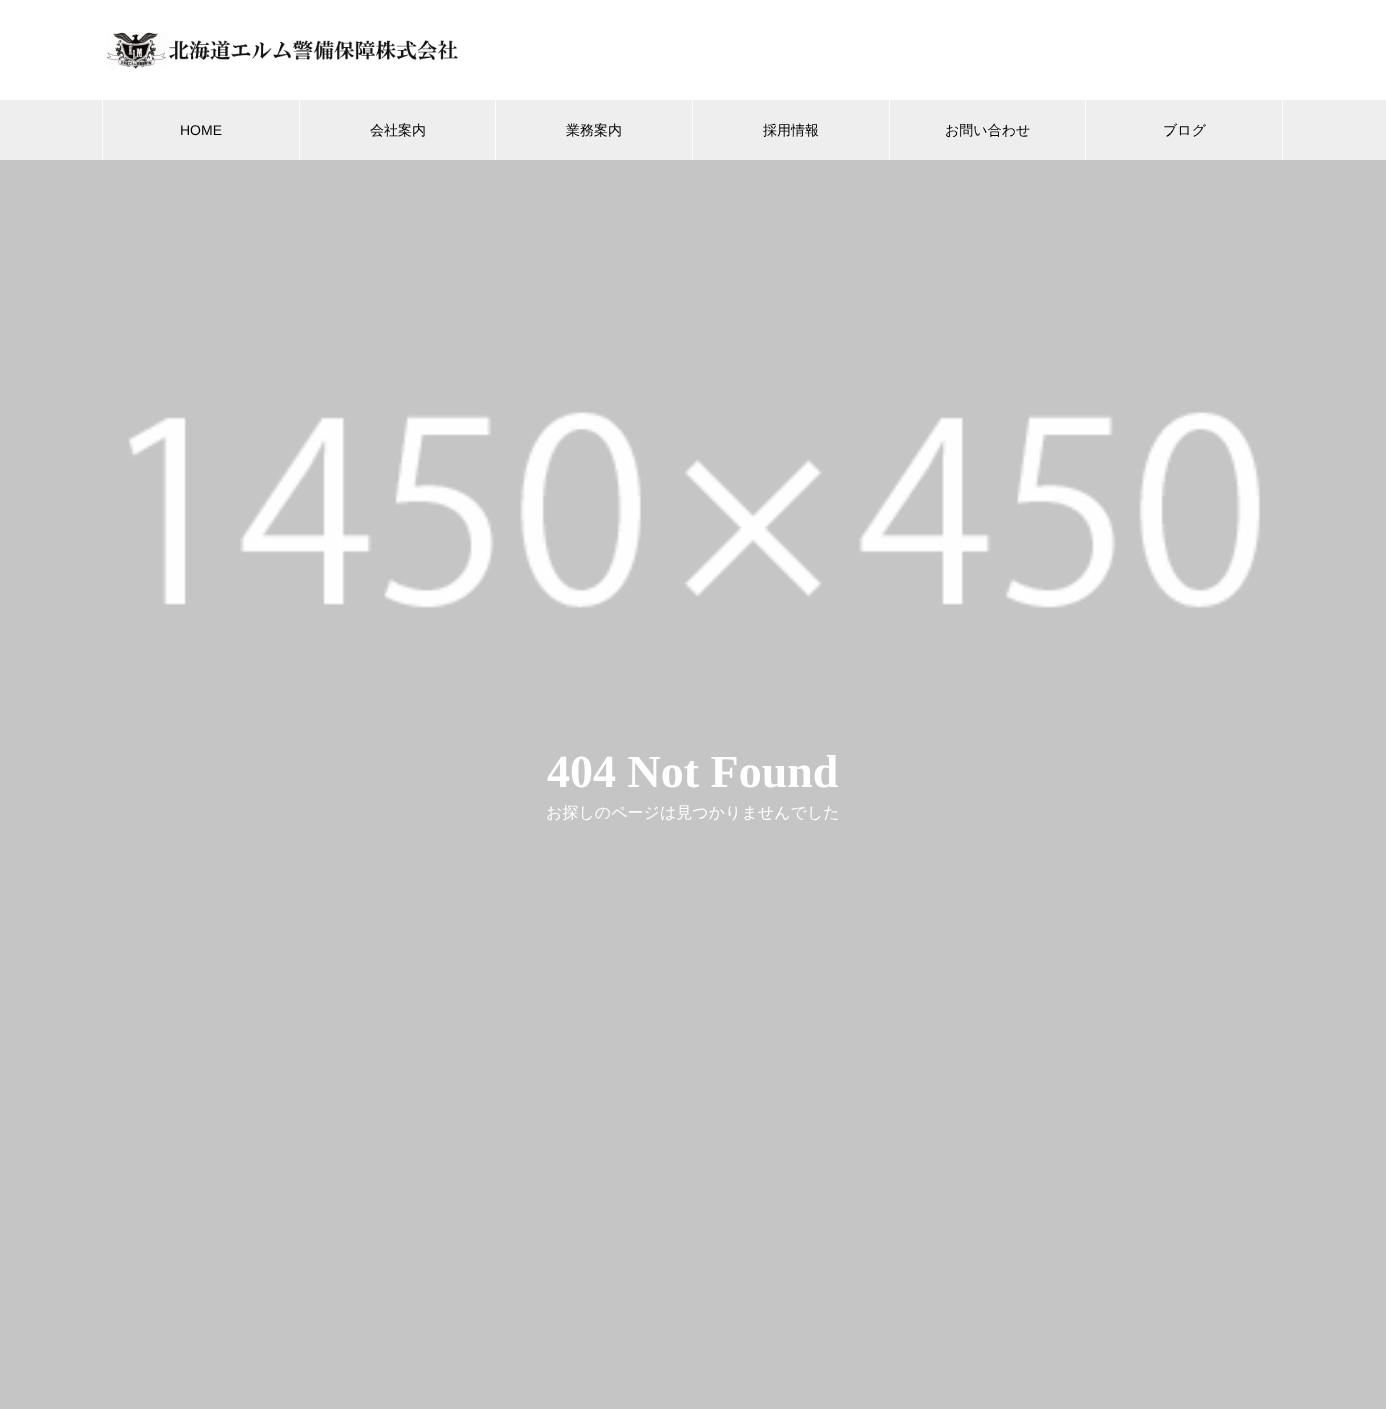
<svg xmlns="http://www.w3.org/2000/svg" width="1386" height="1409">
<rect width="100%" height="100%" fill="#fff"/>
<image x="106" y="32" width="352" height="37" href="media/1.png"/>
<rect y="100" width="1386" height="60" fill="#eee"/>
<rect x="299" y="100" width="1" height="60" fill="#fff"/>
<rect x="102" y="100" width="1" height="60" fill="#fff"/>
<text x="180" y="135" style="font-family:Liberation Sans;font-size:14px;fill:#000">HOME</text>
<rect x="495" y="100" width="1" height="60" fill="#fff"/>
<text x="370" y="135" style="font-family:WenQuanYi Zen Hei;font-size:14px;font-weight:500;fill:#000">会社案内</text>
<text x="566" y="135" style="font-family:WenQuanYi Zen Hei;font-size:14px;font-weight:500;fill:#000">業務案内</text>
<rect x="889" y="100" width="1" height="60" fill="#fff"/>
<rect x="692" y="100" width="1" height="60" fill="#fff"/>
<text x="763" y="135" style="font-family:WenQuanYi Zen Hei;font-size:14px;font-weight:500;fill:#000">採用情報</text>
<rect x="1085" y="100" width="1" height="60" fill="#fff"/>
<text x="945" y="135" style="font-family:WenQuanYi Zen Hei;font-size:14px;font-weight:500;fill:#000">お問い合わせ</text>
<rect x="1282" y="100" width="1" height="60" fill="#fff"/>
<text x="1163" y="135" style="font-family:WenQuanYi Zen Hei;font-size:14px;font-weight:500;fill:#000">ブログ</text>
<image x="0" y="160" width="1386" height="1249" href="media/2.png"/>
<text x="547" y="787" style="font-family:Liberation Serif;font-size:46px;font-weight:bold;fill:#fff">404 Not Found</text>
<text x="546" y="818" style="font-family:WenQuanYi Zen Hei;font-size:16px;font-weight:500;fill:#fff">お探しのページは見つかりませんでした</text>
</svg>
